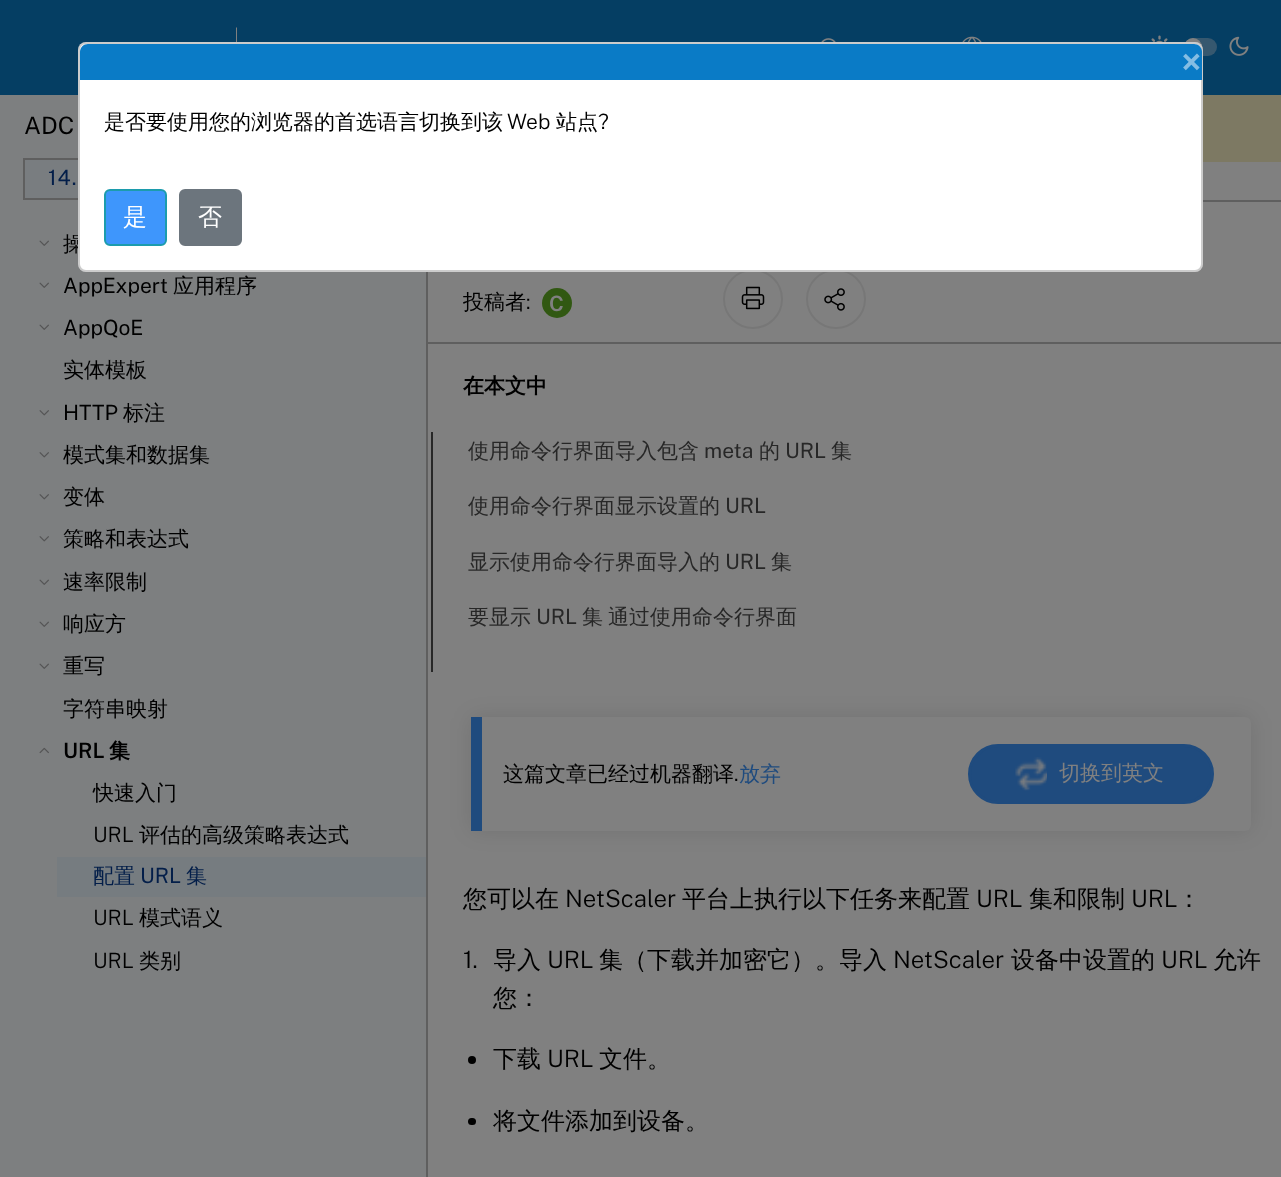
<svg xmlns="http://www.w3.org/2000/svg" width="1281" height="1177">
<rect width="100%" height="100%" fill="#808080"/>
<rect width="1281" height="95" fill="#053e63"/>
<path d="M236 27v1v43v1l1-1v-43z" fill="#808080"/>
<image x="821" y="38" width="15" height="4" href="media/1.png"/>
<image x="962" y="36" width="20" height="6" href="media/2.png"/>
<image x="1151" y="35" width="17" height="7" href="media/3.png"/>
<rect x="1184" y="38" width="33" height="18" rx="9" fill="#36586f"/>
<circle cx="1193" cy="47" r="9" fill="#808080"/>
<image x="1229" y="36" width="20" height="20" href="media/4.png"/>
<rect y="95" width="426" height="1082" fill="#7d7f80"/>
<rect x="25" y="160" width="53" height="38" fill="#797d80"/>
<rect x="24" y="159" width="379" height="40" fill="none" stroke="#5f5f5f" stroke-width="2"/>
<text x="63" y="251" style="font-family:WenQuanYi Zen Hei;font-size:21px;font-weight:500;fill:#000">操</text>
<circle cx="753" cy="299" r="29" fill="none" stroke="#00000012" stroke-width="2"/>
<circle cx="836" cy="299" r="29" fill="none" stroke="#00000012" stroke-width="2"/>
<rect x="78" y="42" width="1125" height="230" rx="8" fill="#fff"/>
<rect x="79" y="43" width="1123" height="228" rx="7" fill="none" stroke="#00000033" stroke-width="2"/>
<path d="M88 44h1106c4.5 0 8 3.5 8 8v28h-1122v-28c0-4.5 3.5-8 8-8z" fill="#0a7bc6"/>
<text x="1181" y="75" style="font-family:Public Sans;font-size:36px;font-weight:bold;fill:#85bde3">×</text>
<text x="104" y="129" style="font-family:WenQuanYi Zen Hei;font-size:21px;font-weight:500;fill:#000">是否要使用您的浏览器的首选语言切换到该</text>
<text x="507" y="129" style="font-family:Public Sans;font-size:21px;font-weight:300;fill:#000">Web</text>
<text x="556" y="129" style="font-family:WenQuanYi Zen Hei;font-size:21px;font-weight:500;fill:#000">站点</text>
<text x="598" y="129" style="font-family:Public Sans;font-size:21px;font-weight:300;fill:#000">?</text>
<rect x="105" y="190" width="61" height="55" rx="5" fill="#3e96fc" stroke="#1c9cad" stroke-width="2"/>
<text x="123" y="225" style="font-family:WenQuanYi Zen Hei;font-size:24px;font-weight:500;fill:#fff">是</text>
<rect x="180" y="190" width="61" height="55" rx="5" fill="#6c757d" stroke="#6c757d" stroke-width="2"/>
<text x="198" y="225" style="font-family:WenQuanYi Zen Hei;font-size:24px;font-weight:500;fill:#fff">否</text>
<rect x="426" y="272" width="2" height="905" fill="#5f5f5f"/>
<text x="24" y="134" style="font-family:Public Sans;font-size:24px;fill:#000">ADC</text>
<text x="48" y="185" style="font-family:Public Sans;font-size:21px;letter-spacing:1px;fill:#031e49">14.</text>
<image x="39" y="240" width="10" height="6" href="media/5.png"/>
<image x="39" y="282" width="10" height="6" href="media/5.png"/>
<text x="63" y="293" style="font-family:Public Sans;font-size:21px;fill:#000">AppExpert</text>
<text x="173" y="293" style="font-family:WenQuanYi Zen Hei;font-size:21px;font-weight:500;fill:#000">应用程序</text>
<image x="39" y="324" width="10" height="6" href="media/5.png"/>
<text x="63" y="335" style="font-family:Public Sans;font-size:21px;fill:#000">AppQoE</text>
<text x="63" y="377" style="font-family:WenQuanYi Zen Hei;font-size:21px;font-weight:500;fill:#000">实体模板</text>
<image x="39" y="410" width="10" height="6" href="media/6.png"/>
<text x="63" y="420" style="font-family:Public Sans;font-size:21px;fill:#000">HTTP</text>
<text x="123" y="420" style="font-family:WenQuanYi Zen Hei;font-size:21px;font-weight:500;fill:#000">标注</text>
<image x="39" y="452" width="10" height="6" href="media/6.png"/>
<text x="63" y="462" style="font-family:WenQuanYi Zen Hei;font-size:21px;font-weight:500;fill:#000">模式集和数据集</text>
<image x="39" y="494" width="10" height="6" href="media/6.png"/>
<text x="63" y="504" style="font-family:WenQuanYi Zen Hei;font-size:21px;font-weight:500;fill:#000">变体</text>
<image x="39" y="536" width="10" height="6" href="media/6.png"/>
<text x="63" y="546" style="font-family:WenQuanYi Zen Hei;font-size:21px;font-weight:500;fill:#000">策略和表达式</text>
<image x="39" y="579" width="10" height="6" href="media/5.png"/>
<text x="63" y="589" style="font-family:WenQuanYi Zen Hei;font-size:21px;font-weight:500;fill:#000">速率限制</text>
<image x="39" y="621" width="10" height="6" href="media/5.png"/>
<text x="63" y="631" style="font-family:WenQuanYi Zen Hei;font-size:21px;font-weight:500;fill:#000">响应方</text>
<image x="39" y="663" width="10" height="6" href="media/5.png"/>
<text x="63" y="673" style="font-family:WenQuanYi Zen Hei;font-size:21px;font-weight:500;fill:#000">重写</text>
<text x="63" y="716" style="font-family:WenQuanYi Zen Hei;font-size:21px;font-weight:500;fill:#000">字符串映射</text>
<image x="39" y="747" width="10" height="7" href="media/7.png"/>
<text x="63" y="758" style="font-family:Public Sans;font-size:21px;font-weight:600;fill:#000">URL</text>
<text x="109" y="758" style="font-family:WenQuanYi Zen Hei;font-size:21px;font-weight:bold;fill:#000">集</text>
<text x="93" y="800" style="font-family:WenQuanYi Zen Hei;font-size:21px;font-weight:500;fill:#000">快速入门</text>
<text x="93" y="842" style="font-family:Public Sans;font-size:21px;font-weight:300;fill:#000">URL</text>
<text x="139" y="842" style="font-family:WenQuanYi Zen Hei;font-size:21px;font-weight:500;fill:#000">评估的高级策略表达式</text>
<rect x="57" y="857" width="369" height="40" fill="#767c80"/>
<text x="93" y="883" style="font-family:WenQuanYi Zen Hei;font-size:21px;font-weight:500;fill:#031e49">配置</text>
<text x="140" y="883" style="font-family:Public Sans;font-size:21px;fill:#031e49">URL</text>
<text x="186" y="883" style="font-family:WenQuanYi Zen Hei;font-size:21px;font-weight:500;fill:#031e49">集</text>
<text x="93" y="925" style="font-family:Public Sans;font-size:21px;font-weight:300;fill:#000">URL</text>
<text x="139" y="925" style="font-family:WenQuanYi Zen Hei;font-size:21px;font-weight:500;fill:#000">模式语义</text>
<text x="93" y="968" style="font-family:Public Sans;font-size:21px;font-weight:300;fill:#000">URL</text>
<text x="139" y="968" style="font-family:WenQuanYi Zen Hei;font-size:21px;font-weight:500;fill:#000">类别</text>
<rect x="1203" y="95" width="78" height="67" fill="#7d7963"/>
<rect x="1203" y="200" width="78" height="2" fill="#5f5f5f"/>
<rect x="428" y="342" width="853" height="2" fill="#5f5f5f"/>
<text x="463" y="309" style="font-family:WenQuanYi Zen Hei;font-size:21px;font-weight:500;fill:#000">投稿者</text>
<text x="526" y="309" style="font-family:Public Sans;font-size:21px;font-weight:300;fill:#000">:</text>
<circle cx="557" cy="303" r="15" fill="#315812"/>
<text x="549" y="311" style="font-family:Public Sans;font-size:21px;font-weight:600;fill:#808080">C</text>
<image x="741" y="286" width="24" height="24" href="media/8.png"/>
<image x="824" y="288" width="21" height="23" href="media/9.png"/>
<text x="463" y="393" style="font-family:WenQuanYi Zen Hei;font-size:21px;font-weight:bold;fill:#000">在本文中</text>
<rect x="431" y="432" width="2" height="240" fill="#272727"/>
<text x="468" y="458" style="font-family:WenQuanYi Zen Hei;font-size:21px;font-weight:500;fill:#272727">使用命令行界面导入包含</text>
<text x="704" y="458" style="font-family:Public Sans;font-size:21px;fill:#272727">meta</text>
<text x="759" y="458" style="font-family:WenQuanYi Zen Hei;font-size:21px;font-weight:500;fill:#272727">的</text>
<text x="785" y="458" style="font-family:Public Sans;font-size:21px;fill:#272727">URL</text>
<text x="831" y="458" style="font-family:WenQuanYi Zen Hei;font-size:21px;font-weight:500;fill:#272727">集</text>
<text x="468" y="513" style="font-family:WenQuanYi Zen Hei;font-size:21px;font-weight:500;fill:#272727">使用命令行界面显示设置的</text>
<text x="725" y="513" style="font-family:Public Sans;font-size:21px;fill:#272727">URL</text>
<text x="468" y="569" style="font-family:WenQuanYi Zen Hei;font-size:21px;font-weight:500;fill:#272727">显示使用命令行界面导入的</text>
<text x="725" y="569" style="font-family:Public Sans;font-size:21px;fill:#272727">URL</text>
<text x="771" y="569" style="font-family:WenQuanYi Zen Hei;font-size:21px;font-weight:500;fill:#272727">集</text>
<text x="468" y="624" style="font-family:WenQuanYi Zen Hei;font-size:21px;font-weight:500;fill:#272727">要显示</text>
<text x="536" y="624" style="font-family:Public Sans;font-size:21px;fill:#272727">URL</text>
<text x="582" y="624" style="font-family:WenQuanYi Zen Hei;font-size:21px;font-weight:500;fill:#272727">集</text>
<text x="608" y="624" style="font-family:WenQuanYi Zen Hei;font-size:21px;font-weight:500;fill:#272727">通过使用命令行界面</text>
<rect x="471" y="717" width="780" height="114" rx="6" fill="#0000001c" filter="blur(10.5px)"/>
<rect x="471" y="717" width="780" height="114" rx="6" fill="#808080"/>
<rect x="471" y="717" width="11" height="114" fill="#1f4b7e"/>
<text x="503" y="781" style="font-family:WenQuanYi Zen Hei;font-size:21px;font-weight:500;fill:#000">这篇文章已经过机器翻译</text>
<text x="734" y="781" style="font-family:Public Sans;font-size:21px;font-weight:300;fill:#000">.</text>
<text x="739" y="781" style="font-family:WenQuanYi Zen Hei;font-size:21px;font-weight:500;fill:#1f4b7e">放弃</text>
<rect x="969.5" y="745.5" width="243" height="57" rx="28.5" fill="#1f4b7e" stroke="#1f4b7e" stroke-width="3"/>
<image x="1015" y="757" width="32" height="34" href="media/10.png"/>
<text x="1059" y="780" style="font-family:WenQuanYi Zen Hei;font-size:21px;font-weight:500;fill:#808080">切换到英文</text>
<text x="463" y="907" style="font-family:WenQuanYi Zen Hei;font-size:24px;font-weight:500;fill:#000">您可以在</text>
<text x="565" y="907" style="font-family:Public Sans;font-size:24px;font-weight:300;fill:#000">NetScaler</text>
<text x="682" y="907" style="font-family:WenQuanYi Zen Hei;font-size:24px;font-weight:500;fill:#000">平台上执行以下任务来配置</text>
<text x="976" y="907" style="font-family:Public Sans;font-size:24px;font-weight:300;fill:#000">URL</text>
<text x="1029" y="907" style="font-family:WenQuanYi Zen Hei;font-size:24px;font-weight:500;fill:#000">集和限制</text>
<text x="1131" y="907" style="font-family:Public Sans;font-size:24px;font-weight:300;fill:#000">URL</text>
<text x="1177" y="907" style="font-family:WenQuanYi Zen Hei;font-size:24px;font-weight:500;fill:#000">：</text>
<text x="463" y="968" style="font-family:Public Sans;font-size:24px;font-weight:300;fill:#000">1.</text>
<text x="493" y="968" style="font-family:WenQuanYi Zen Hei;font-size:24px;font-weight:500;fill:#000">导入</text>
<text x="547" y="968" style="font-family:Public Sans;font-size:24px;font-weight:300;fill:#000">URL</text>
<text x="599" y="968" style="font-family:WenQuanYi Zen Hei;font-size:24px;font-weight:500;fill:#000">集（下载并加密它）。导入</text>
<text x="893" y="968" style="font-family:Public Sans;font-size:24px;font-weight:300;fill:#000">NetScaler</text>
<text x="1011" y="968" style="font-family:WenQuanYi Zen Hei;font-size:24px;font-weight:500;fill:#000">设备中设置的</text>
<text x="1161" y="968" style="font-family:Public Sans;font-size:24px;font-weight:300;fill:#000">URL</text>
<text x="1213" y="968" style="font-family:WenQuanYi Zen Hei;font-size:24px;font-weight:500;fill:#000">允许</text>
<text x="493" y="1006" style="font-family:WenQuanYi Zen Hei;font-size:24px;font-weight:500;fill:#000">您：</text>
<circle cx="472" cy="1060" r="4" fill="#000"/>
<text x="493" y="1067" style="font-family:WenQuanYi Zen Hei;font-size:24px;font-weight:500;fill:#000">下载</text>
<text x="547" y="1067" style="font-family:Public Sans;font-size:24px;font-weight:300;fill:#000">URL</text>
<text x="599" y="1067" style="font-family:WenQuanYi Zen Hei;font-size:24px;font-weight:500;fill:#000">文件。</text>
<rect x="468" y="1118" width="8" height="7" rx="3.5" fill="#000"/>
<text x="493" y="1129" style="font-family:WenQuanYi Zen Hei;font-size:24px;font-weight:500;fill:#000">将文件添加到设备。</text>
</svg>
